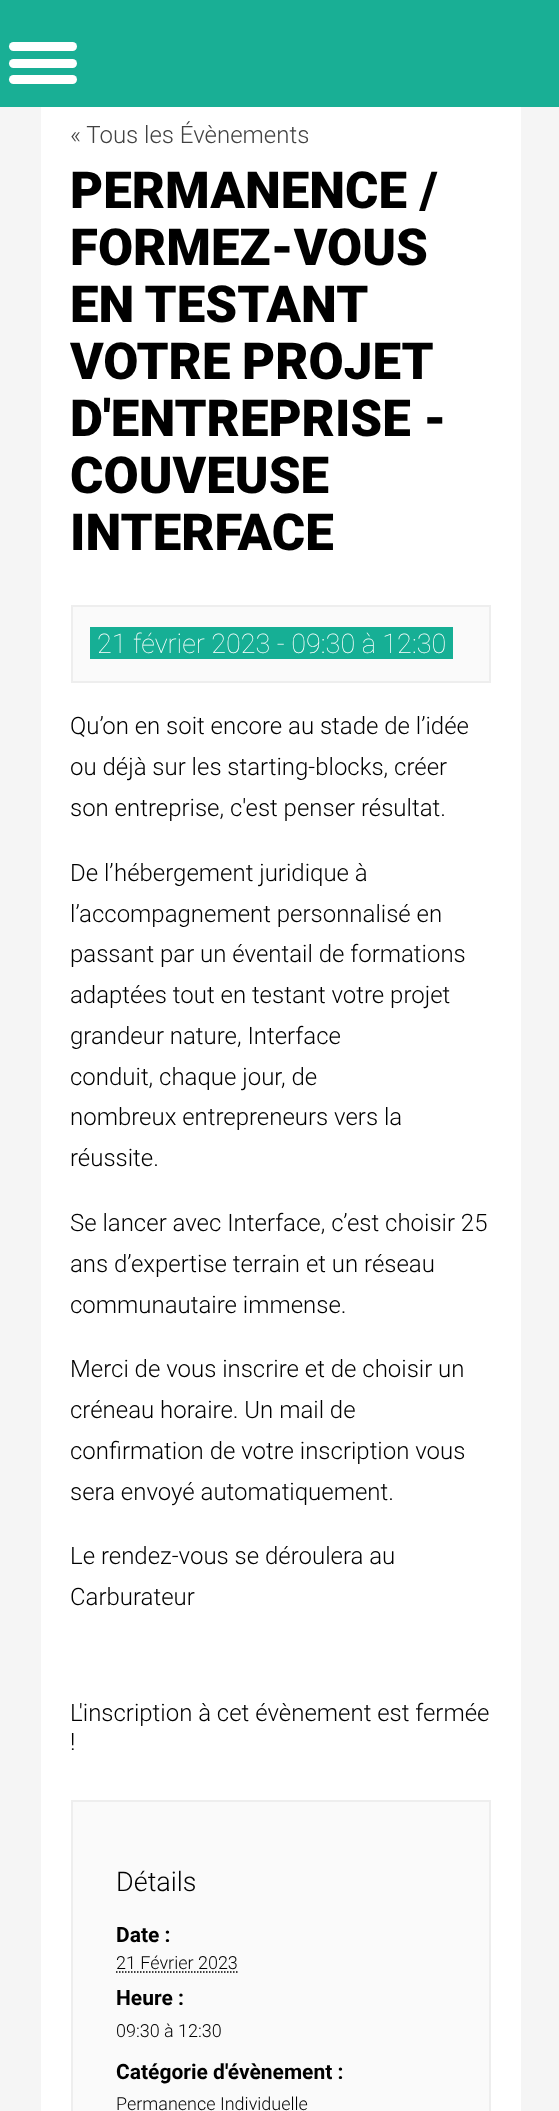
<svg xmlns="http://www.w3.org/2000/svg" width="559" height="2111">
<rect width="100%" height="100%" fill="#f5f5f5"/>
<rect width="559" height="107" fill="#19af95"/>
<rect x="9" y="42" width="68" height="9" rx="4.5" fill="#fff"/>
<rect x="9" y="59" width="68" height="9" rx="4.5" fill="#fff"/>
<rect x="9" y="75" width="68" height="9" rx="4.5" fill="#fff"/>
<rect x="41" y="107" width="480" height="2004" fill="#fff"/>
<text x="70" y="143" style="font-family:Roboto;font-size:24px;font-weight:300;fill:#424242">« Tous les Évènements</text>
<text x="70" y="208" style="font-family:Roboto;font-size:51px;font-weight:900;fill:#000">PERMANENCE /</text>
<text x="70" y="265" style="font-family:Roboto;font-size:51px;font-weight:900;fill:#000">FORMEZ-VOUS</text>
<text x="70" y="322" word-spacing="-1" style="font-family:Roboto;font-size:51px;font-weight:900;fill:#000">EN TESTANT</text>
<text x="70" y="379" word-spacing="-1" style="font-family:Roboto;font-size:51px;font-weight:900;fill:#000">VOTRE PROJET</text>
<text x="70" y="436" style="font-family:Roboto;font-size:51px;font-weight:900;fill:#000">D'ENTREPRISE -</text>
<text x="70" y="493" style="font-family:Roboto;font-size:51px;font-weight:900;fill:#000">COUVEUSE</text>
<text x="70" y="550" style="font-family:Roboto;font-size:51px;font-weight:900;fill:#000">INTERFACE</text>
<rect x="72" y="606" width="418" height="76" fill="#fafafa" stroke="#eee" stroke-width="2"/>
<rect x="90" y="627" width="363" height="32" fill="#16af95"/>
<text x="97" y="653" style="font-family:Roboto;font-size:27px;font-weight:100;fill:#fff">21 février 2023 - 09:30 à 12:30</text>
<text x="70" y="734" style="font-family:Roboto;font-size:24px;font-weight:300;fill:#000">Qu’on en soit encore au stade de l’idée</text>
<text x="70" y="775" style="font-family:Roboto;font-size:24px;font-weight:300;fill:#000">ou déjà sur les starting-blocks, créer</text>
<text x="70" y="816" style="font-family:Roboto;font-size:24px;font-weight:300;fill:#000">son entreprise, c'est penser résultat.</text>
<text x="70" y="881" style="font-family:Roboto;font-size:24px;font-weight:300;fill:#000">De l’hébergement juridique à</text>
<text x="70" y="922" style="font-family:Roboto;font-size:24px;font-weight:300;fill:#000">l’accompagnement personnalisé en</text>
<text x="70" y="962" style="font-family:Roboto;font-size:24px;font-weight:300;fill:#000">passant par un éventail de formations</text>
<text x="70" y="1003" style="font-family:Roboto;font-size:24px;font-weight:300;fill:#000">adaptées tout en testant votre projet</text>
<text x="70" y="1044" style="font-family:Roboto;font-size:24px;font-weight:300;fill:#000">grandeur nature, Interface</text>
<text x="70" y="1085" style="font-family:Roboto;font-size:24px;font-weight:300;fill:#000">conduit, chaque jour, de</text>
<text x="70" y="1125" style="font-family:Roboto;font-size:24px;font-weight:300;fill:#000">nombreux entrepreneurs vers la</text>
<text x="70" y="1166" style="font-family:Roboto;font-size:24px;font-weight:300;fill:#000">réussite.</text>
<text x="70" y="1231" style="font-family:Roboto;font-size:24px;font-weight:300;fill:#000">Se lancer avec Interface, c’est choisir 25</text>
<text x="70" y="1272" style="font-family:Roboto;font-size:24px;font-weight:300;fill:#000">ans d’expertise terrain et un réseau</text>
<text x="70" y="1313" style="font-family:Roboto;font-size:24px;font-weight:300;fill:#000">communautaire immense.</text>
<text x="70" y="1377" style="font-family:Roboto;font-size:24px;font-weight:300;fill:#000">Merci de vous inscrire et de choisir un</text>
<text x="70" y="1418" style="font-family:Roboto;font-size:24px;font-weight:300;fill:#000">créneau horaire. Un mail de</text>
<text x="70" y="1459" style="font-family:Roboto;font-size:24px;font-weight:300;fill:#000">confirmation de votre inscription vous</text>
<text x="70" y="1500" style="font-family:Roboto;font-size:24px;font-weight:300;fill:#000">sera envoyé automatiquement.</text>
<text x="70" y="1564" style="font-family:Roboto;font-size:24px;font-weight:300;fill:#000">Le rendez-vous se déroulera au</text>
<text x="70" y="1605" style="font-family:Roboto;font-size:24px;font-weight:300;fill:#000">Carburateur</text>
<text x="70" y="1721" style="font-family:Roboto;font-size:24px;font-weight:300;fill:#000">L'inscription à cet évènement est fermée</text>
<text x="70" y="1750" style="font-family:Roboto;font-size:24px;font-weight:300;fill:#000">!</text>
<rect x="72" y="1801" width="418" height="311" fill="#fafafa" stroke="#eee" stroke-width="2"/>
<text x="116" y="1891" style="font-family:Roboto;font-size:27px;font-weight:300;fill:#000">Détails</text>
<text x="116" y="1942" style="font-family:Roboto;font-size:21px;font-weight:bold;fill:#000">Date :</text>
<text x="116" y="1969" style="font-family:Roboto;font-size:18px;font-weight:300;fill:#000">21 Février 2023</text>
<path d="M116 1972h122" fill="none" stroke="#000" stroke-width="1.5" stroke-dasharray="1.5 1.5"/>
<text x="116" y="2005" style="font-family:Roboto;font-size:21px;font-weight:bold;fill:#000">Heure :</text>
<text x="116" y="2037" style="font-family:Roboto;font-size:18px;font-weight:300;fill:#000">09:30 à 12:30</text>
<text x="116" y="2079" style="font-family:Roboto;font-size:21px;font-weight:bold;fill:#000">Catégorie d'évènement :</text>
<text x="116" y="2110" style="font-family:Roboto;font-size:18px;font-weight:300;fill:#000">Permanence Individuelle</text>
</svg>
